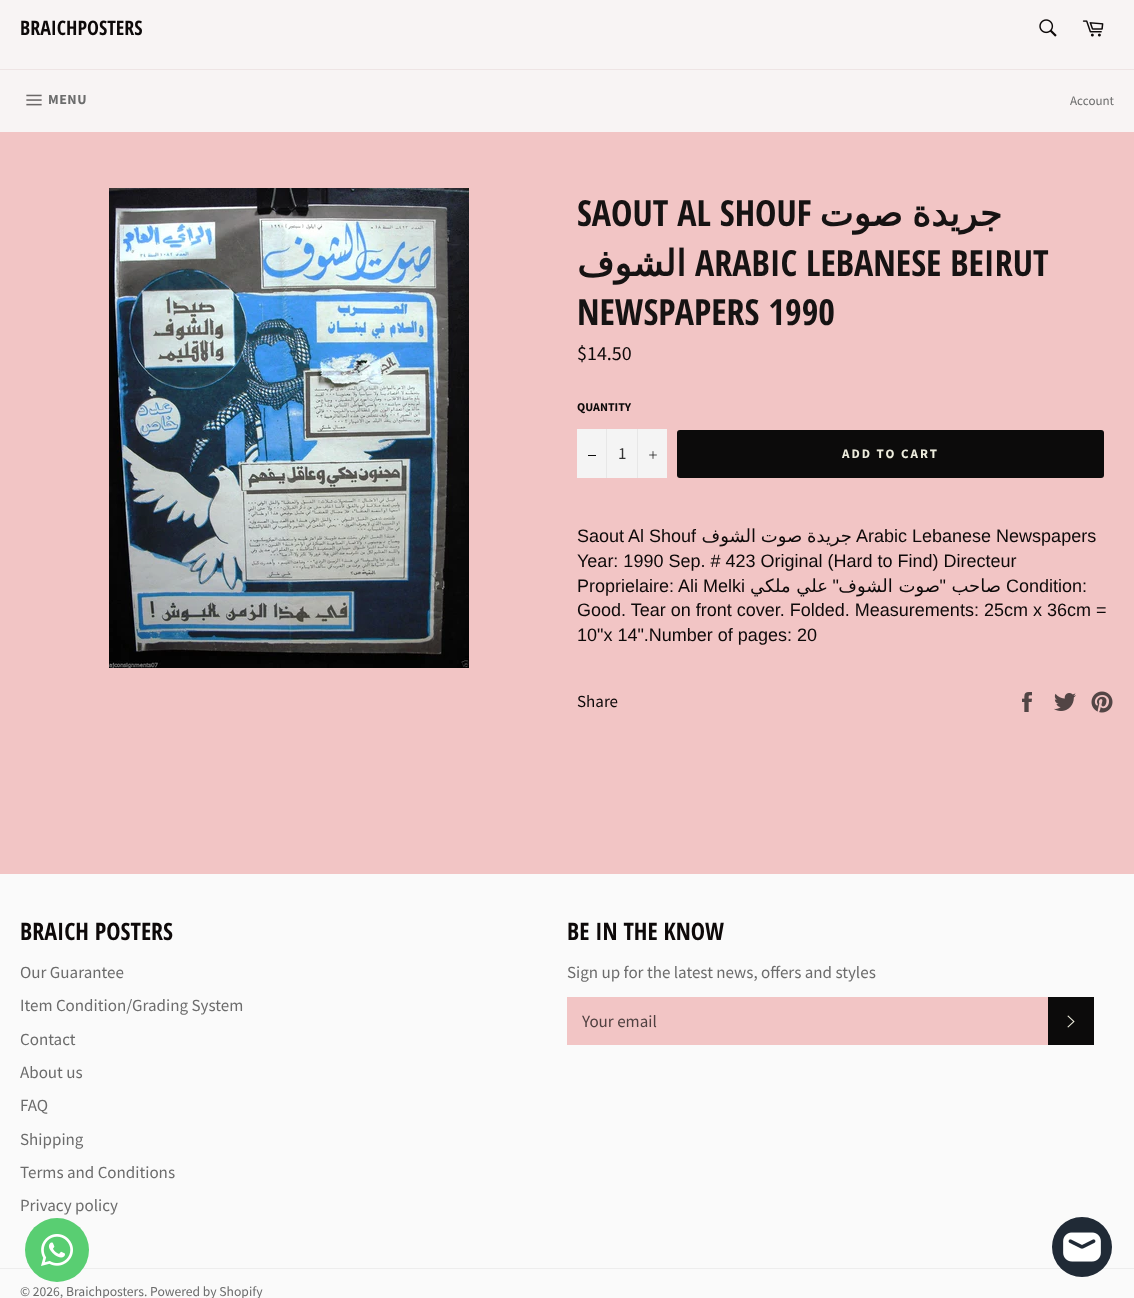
<svg xmlns="http://www.w3.org/2000/svg" width="1134" height="1298">
<rect width="100%" height="100%" fill="#f2c5c5"/>
<rect width="1134" height="69" fill="#f8f4f4"/>
<text x="20" y="35" style="font-family:Open Sans Condensed;font-size:20px;font-weight:bold;fill:#0d0909">BRAICHPOSTERS</text>
<image x="1039" y="19" width="18" height="18" href="media/1.png"/>
<image x="1082" y="20" width="22" height="17" href="media/2.png"/>
<rect y="70" width="1134" height="62" fill="#f8f4f4"/>
<rect y="69" width="1134" height="1" fill="#eee4e4"/>
<image x="26" y="94" width="16" height="12" href="media/3.png"/>
<text x="48" y="104" style="font-family:Source Sans Pro;font-size:14px;font-weight:bold;letter-spacing:0.5px;fill:#6c6c6c">MENU</text>
<text x="1070" y="105" style="font-family:Source Sans Pro;font-size:13px;fill:#6c6c6c">Account</text>
<image x="109" y="188" width="360" height="480" href="media/4.png"/>
<text x="577" y="226" style="font-family:Open Sans Condensed;font-size:36px;font-weight:bold;fill:#161313">SAOUT AL SHOUF</text>
<text x="1002" y="226" word-spacing="-2" style="font-family:DejaVu Sans;font-size:36px;font-weight:bold;direction:rtl;fill:#161313">جريدة صوت</text>
<text x="686" y="276" style="font-family:DejaVu Sans;font-size:36px;font-weight:bold;direction:rtl;fill:#161313">الشوف</text>
<text x="695" y="276" style="font-family:Open Sans Condensed;font-size:36px;font-weight:bold;fill:#161313">ARABIC LEBANESE BEIRUT</text>
<text x="577" y="325" style="font-family:Open Sans Condensed;font-size:36px;font-weight:bold;fill:#161313">NEWSPAPERS 1990</text>
<text x="577" y="360" style="font-family:Source Sans Pro;font-size:20px;fill:#0d0909">$14.50</text>
<text x="577" y="411" style="font-family:Source Sans Pro;font-size:12px;font-weight:bold;fill:#0d0909">QUANTITY</text>
<rect x="577" y="429" width="90" height="49" fill="#f4f4f4"/>
<rect x="606" y="429" width="1" height="49" fill="#e7e7e7"/>
<rect x="588" y="455" width="8" height="1" fill="#0d0d0d"/>
<text x="618" y="459" style="font-family:Source Sans Pro;font-size:17px;fill:#333">1</text>
<rect x="637" y="429" width="1" height="49" fill="#e7e7e7"/>
<image x="649" y="451" width="8" height="8" href="media/5.png"/>
<rect x="677" y="430" width="427" height="48" rx="3" fill="#0c0b0b"/>
<text x="842" y="458" style="font-family:Source Sans Pro;font-size:13px;font-weight:bold;letter-spacing:2px;fill:#edecdd">ADD TO CART</text>
<text x="577" y="542" style="font-family:Liberation Sans;font-size:18px;fill:#0d0909">Saout Al Shouf</text>
<text x="852" y="542" word-spacing="-1" style="font-family:DejaVu Sans;font-size:18px;direction:rtl;fill:#0d0909">جريدة صوت الشوف</text>
<text x="856" y="542" style="font-family:Liberation Sans;font-size:18px;fill:#0d0909">Arabic Lebanese Newspapers</text>
<text x="577" y="567" style="font-family:Liberation Sans;font-size:18px;fill:#0d0909">Year: 1990 Sep. # 423 Original (Hard to Find) Directeur</text>
<text x="577" y="592" style="font-family:Liberation Sans;font-size:18px;fill:#0d0909">Proprielaire: Ali Melki</text>
<text x="828" y="592" style="font-family:DejaVu Sans;font-size:18px;direction:rtl;fill:#0d0909">علي ملكي</text>
<text x="839" y="592" style="font-family:Liberation Sans;font-size:18px;direction:rtl;fill:#0d0909">"</text>
<text x="940" y="592" style="font-family:DejaVu Sans;font-size:18px;direction:rtl;fill:#0d0909">صوت الشوف</text>
<text x="946" y="592" style="font-family:Liberation Sans;font-size:18px;direction:rtl;fill:#0d0909">"</text>
<text x="1001" y="592" style="font-family:DejaVu Sans;font-size:18px;direction:rtl;fill:#0d0909">صاحب</text>
<text x="1006" y="592" style="font-family:Liberation Sans;font-size:18px;fill:#0d0909">Condition:</text>
<text x="577" y="616" style="font-family:Liberation Sans;font-size:18px;fill:#0d0909">Good. Tear on front cover. Folded. Measurements: 25cm x 36cm =</text>
<text x="577" y="641" style="font-family:Liberation Sans;font-size:18px;fill:#0d0909">10"x 14".Number of pages: 20</text>
<text x="577" y="707" style="font-family:Source Sans Pro;font-size:17px;fill:#0d0909">Share</text>
<image x="1022" y="692" width="10" height="20" href="media/6.png"/>
<image x="1054" y="693" width="22" height="18" href="media/7.png"/>
<image x="1091" y="691" width="22" height="22" href="media/8.png"/>
<rect y="874" width="1134" height="424" fill="#fafafa"/>
<text x="20" y="940" style="font-family:Open Sans Condensed;font-size:24px;font-weight:bold;fill:#0d0909">BRAICH POSTERS</text>
<text x="20" y="978" style="font-family:Source Sans Pro;font-size:17px;fill:#6c6c6c">Our Guarantee</text>
<text x="20" y="1011" style="font-family:Source Sans Pro;font-size:17px;fill:#6c6c6c">Item Condition/Grading System</text>
<text x="20" y="1045" style="font-family:Source Sans Pro;font-size:17px;fill:#6c6c6c">Contact</text>
<text x="20" y="1078" style="font-family:Source Sans Pro;font-size:17px;fill:#6c6c6c">About us</text>
<text x="20" y="1111" style="font-family:Source Sans Pro;font-size:17px;fill:#6c6c6c">FAQ</text>
<text x="20" y="1145" style="font-family:Source Sans Pro;font-size:17px;fill:#6c6c6c">Shipping</text>
<text x="20" y="1178" style="font-family:Source Sans Pro;font-size:17px;fill:#6c6c6c">Terms and Conditions</text>
<text x="20" y="1211" style="font-family:Source Sans Pro;font-size:17px;fill:#6c6c6c">Privacy policy</text>
<text x="567" y="940" style="font-family:Open Sans Condensed;font-size:24px;font-weight:bold;fill:#0d0909">BE IN THE KNOW</text>
<text x="567" y="978" style="font-family:Source Sans Pro;font-size:17px;fill:#6c6c6c">Sign up for the latest news, offers and styles</text>
<rect x="567" y="997" width="481" height="48" fill="#f2c5c5"/>
<text x="582" y="1027" style="font-family:Source Sans Pro;font-size:17px;fill:#504141">Your email</text>
<rect x="1048" y="997" width="46" height="48" fill="#0c0b0b"/>
<image x="1067" y="1015" width="8" height="13" href="media/9.png"/>
<rect y="1268" width="1134" height="1" fill="#ededed"/>
<text x="20" y="1296" style="font-family:Source Sans Pro;font-size:13.6px;fill:#6c6c6c">© 2026, Braichposters. Powered by Shopify</text>
<circle cx="57" cy="1250" r="32" fill="#59ce72"/>
<image x="41" y="1234" width="32" height="32" href="media/10.png"/>
<circle cx="1082" cy="1247" r="30" fill="#202a36"/>
<image x="1063" y="1232" width="38" height="30" href="media/11.png"/>
</svg>
